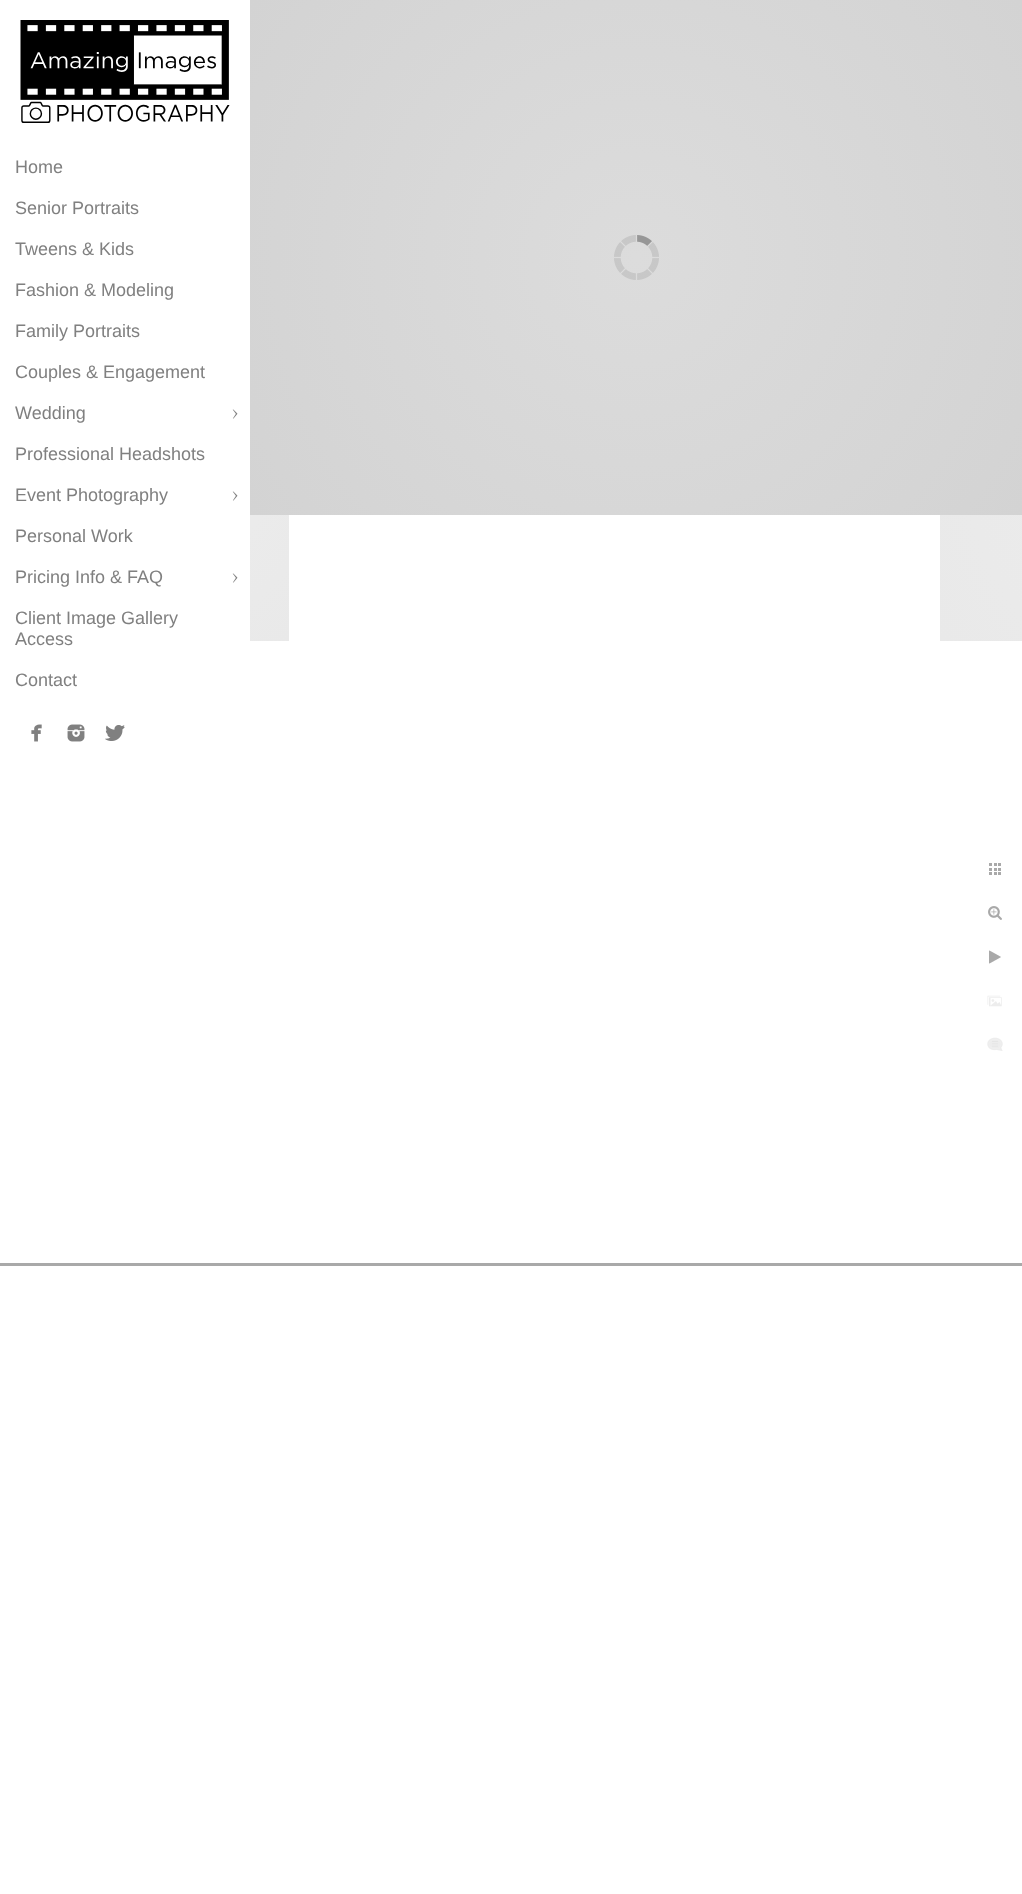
<svg xmlns="http://www.w3.org/2000/svg" width="1022" height="1894">
<defs>
<radialGradient id="g1" gradientUnits="userSpaceOnUse" cx="636" cy="258" r="464"><stop offset="0" stop-color="#dcdcdc"/><stop offset="1" stop-color="#d3d3d3"/></radialGradient>
<radialGradient id="g2" gradientUnits="userSpaceOnUse" cx="159" cy="459" r="224"><stop offset="0" stop-color="#ededed"/><stop offset="1" stop-color="#e9e9e9"/></radialGradient>
<radialGradient id="g3" gradientUnits="userSpaceOnUse" cx="1213" cy="459" r="328"><stop offset="0" stop-color="#ededed"/><stop offset="1" stop-color="#e9e9e9"/></radialGradient>
</defs>
<rect width="100%" height="100%" fill="#fff"/>
<image x="20" y="20" width="210" height="103" href="media/1.png"/>
<text x="15" y="173" style="font-family:Liberation Sans;font-size:18px;fill:#808080">Home</text>
<text x="15" y="214" style="font-family:Liberation Sans;font-size:18px;fill:#808080">Senior Portraits</text>
<text x="15" y="255" style="font-family:Liberation Sans;font-size:18px;fill:#808080">Tweens &amp; Kids</text>
<text x="15" y="296" style="font-family:Liberation Sans;font-size:18px;fill:#808080">Fashion &amp; Modeling</text>
<text x="15" y="337" style="font-family:Liberation Sans;font-size:18px;fill:#808080">Family Portraits</text>
<text x="15" y="378" style="font-family:Liberation Sans;font-size:18px;fill:#808080">Couples &amp; Engagement</text>
<text x="15" y="419" style="font-family:Liberation Sans;font-size:18px;fill:#808080">Wedding</text>
<image x="232" y="409" width="6" height="10" href="media/2.png"/>
<text x="15" y="460" style="font-family:Liberation Sans;font-size:18px;fill:#808080">Professional Headshots</text>
<text x="15" y="501" style="font-family:Liberation Sans;font-size:18px;fill:#808080">Event Photography</text>
<image x="232" y="491" width="6" height="10" href="media/2.png"/>
<text x="15" y="542" style="font-family:Liberation Sans;font-size:18px;fill:#808080">Personal Work</text>
<text x="15" y="583" style="font-family:Liberation Sans;font-size:18px;fill:#808080">Pricing Info &amp; FAQ</text>
<image x="232" y="573" width="6" height="10" href="media/2.png"/>
<text x="15" y="624" style="font-family:Liberation Sans;font-size:18px;fill:#808080">Client Image Gallery</text>
<text x="15" y="645" style="font-family:Liberation Sans;font-size:18px;fill:#808080">Access</text>
<text x="15" y="686" style="font-family:Liberation Sans;font-size:18px;fill:#808080">Contact</text>
<image x="31" y="724" width="11" height="18" href="media/3.png"/>
<image x="67" y="724" width="18" height="18" href="media/4.png"/>
<image x="105" y="725" width="20" height="16" href="media/5.png"/>
<rect x="250" width="772" height="515" fill="url(#g1)"/>
<image x="614" y="235" width="45" height="45" href="media/6.png"/>
<rect x="250" y="515" width="39" height="126" fill="url(#g2)"/>
<rect x="940" y="515" width="82" height="126" fill="url(#g3)"/>
<image x="989" y="863" width="12" height="12" href="media/7.png"/>
<image x="988" y="906" width="14" height="14" href="media/8.png"/>
<image x="989" y="950" width="12" height="14" href="media/9.png"/>
<image x="987" y="995" width="15" height="12" href="media/10.png"/>
<image x="987" y="1037" width="16" height="14" href="media/11.png"/>
<rect y="1263" width="1022" height="3" fill="#a9a9a9"/>
</svg>
